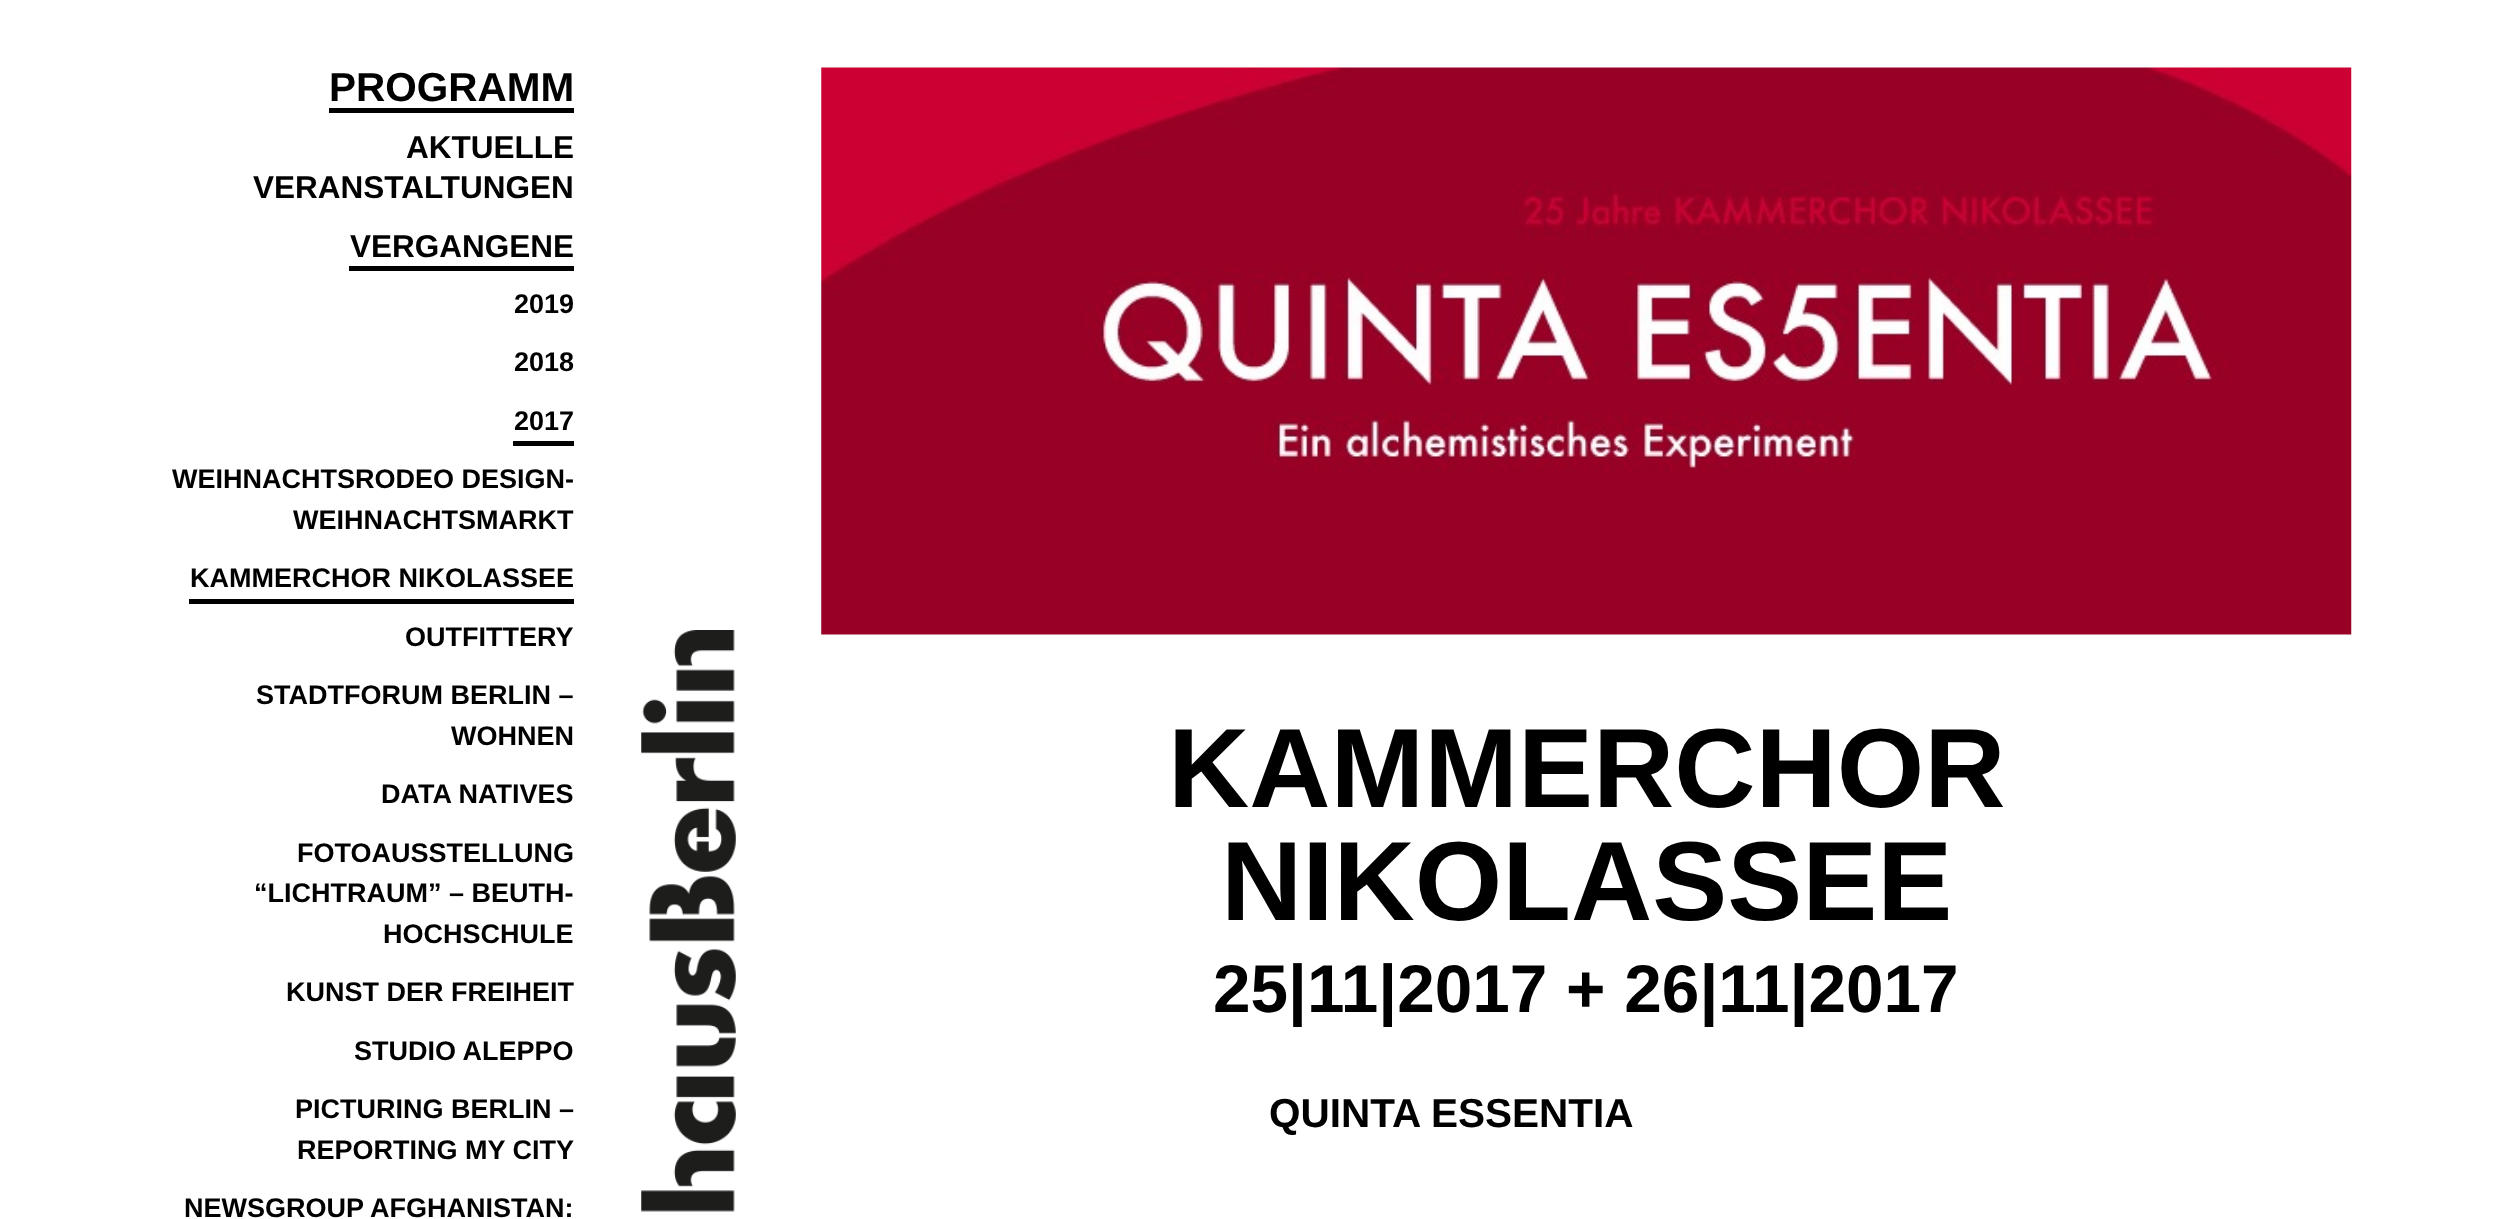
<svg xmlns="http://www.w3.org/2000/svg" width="2520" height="1219">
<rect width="100%" height="100%" fill="#fff"/>
<rect x="329" y="108" width="245" height="5" fill="#000"/>
<text x="329" y="101" style="font-family:Liberation Sans;font-size:40.5px;font-weight:bold;fill:#000">PROGRAMM</text>
<text x="406" y="158" style="font-family:Liberation Sans;font-size:31.5px;font-weight:bold;fill:#000">AKTUELLE</text>
<text x="253" y="198" style="font-family:Liberation Sans;font-size:31.5px;font-weight:bold;fill:#000">VERANSTALTUNGEN</text>
<rect x="349" y="266" width="225" height="5" fill="#000"/>
<text x="350" y="257" style="font-family:Liberation Sans;font-size:31.5px;font-weight:bold;fill:#000">VERGANGENE</text>
<text x="514" y="313" style="font-family:Liberation Sans;font-size:27px;font-weight:bold;fill:#000">2019</text>
<text x="514" y="371" style="font-family:Liberation Sans;font-size:27px;font-weight:bold;fill:#000">2018</text>
<rect x="513" y="441" width="61" height="5" fill="#000"/>
<text x="514" y="430" style="font-family:Liberation Sans;font-size:27px;font-weight:bold;fill:#000">2017</text>
<text x="172" y="488" style="font-family:Liberation Sans;font-size:27px;font-weight:bold;fill:#000">WEIHNACHTSRODEO DESIGN-</text>
<text x="293" y="529" style="font-family:Liberation Sans;font-size:27px;font-weight:bold;fill:#000">WEIHNACHTSMARKT</text>
<rect x="189" y="599" width="385" height="5" fill="#000"/>
<text x="190" y="587" style="font-family:Liberation Sans;font-size:27px;font-weight:bold;fill:#000">KAMMERCHOR NIKOLASSEE</text>
<text x="405" y="646" style="font-family:Liberation Sans;font-size:27px;font-weight:bold;fill:#000">OUTFITTERY</text>
<text x="256" y="704" style="font-family:Liberation Sans;font-size:27px;font-weight:bold;fill:#000">STADTFORUM BERLIN –</text>
<text x="451" y="745" style="font-family:Liberation Sans;font-size:27px;font-weight:bold;fill:#000">WOHNEN</text>
<text x="381" y="803" style="font-family:Liberation Sans;font-size:27px;font-weight:bold;fill:#000">DATA NATIVES</text>
<text x="297" y="862" style="font-family:Liberation Sans;font-size:27px;font-weight:bold;fill:#000">FOTOAUSSTELLUNG</text>
<text x="254" y="902" style="font-family:Liberation Sans;font-size:27px;font-weight:bold;fill:#000">“LICHTRAUM” – BEUTH-</text>
<text x="383" y="943" style="font-family:Liberation Sans;font-size:27px;font-weight:bold;fill:#000">HOCHSCHULE</text>
<text x="286" y="1001" style="font-family:Liberation Sans;font-size:27px;font-weight:bold;fill:#000">KUNST DER FREIHEIT</text>
<text x="354" y="1060" style="font-family:Liberation Sans;font-size:27px;font-weight:bold;fill:#000">STUDIO ALEPPO</text>
<text x="295" y="1118" style="font-family:Liberation Sans;font-size:27px;font-weight:bold;fill:#000">PICTURING BERLIN –</text>
<text x="297" y="1159" style="font-family:Liberation Sans;font-size:27px;font-weight:bold;fill:#000">REPORTING MY CITY</text>
<text x="184" y="1217" style="font-family:Liberation Sans;font-size:27px;font-weight:bold;fill:#000">NEWSGROUP AFGHANISTAN:</text>
<image x="641" y="630" width="95" height="582" href="media/1.png"/>
<image x="821" y="67" width="1531" height="568" href="media/2.png"/>
<text x="1168" y="807" style="font-family:Liberation Sans;font-size:112.5px;font-weight:bold;fill:#000">KAMMERCHOR</text>
<text x="1221" y="920" style="font-family:Liberation Sans;font-size:112.5px;font-weight:bold;fill:#000">NIKOLASSEE</text>
<text x="1213" y="1012" style="font-family:Liberation Sans;font-size:67.5px;font-weight:bold;fill:#000">25|11|2017 + 26|11|2017</text>
<text x="1269" y="1127" style="font-family:Liberation Sans;font-size:40.5px;font-weight:bold;fill:#000">QUINTA ESSENTIA</text>
</svg>
